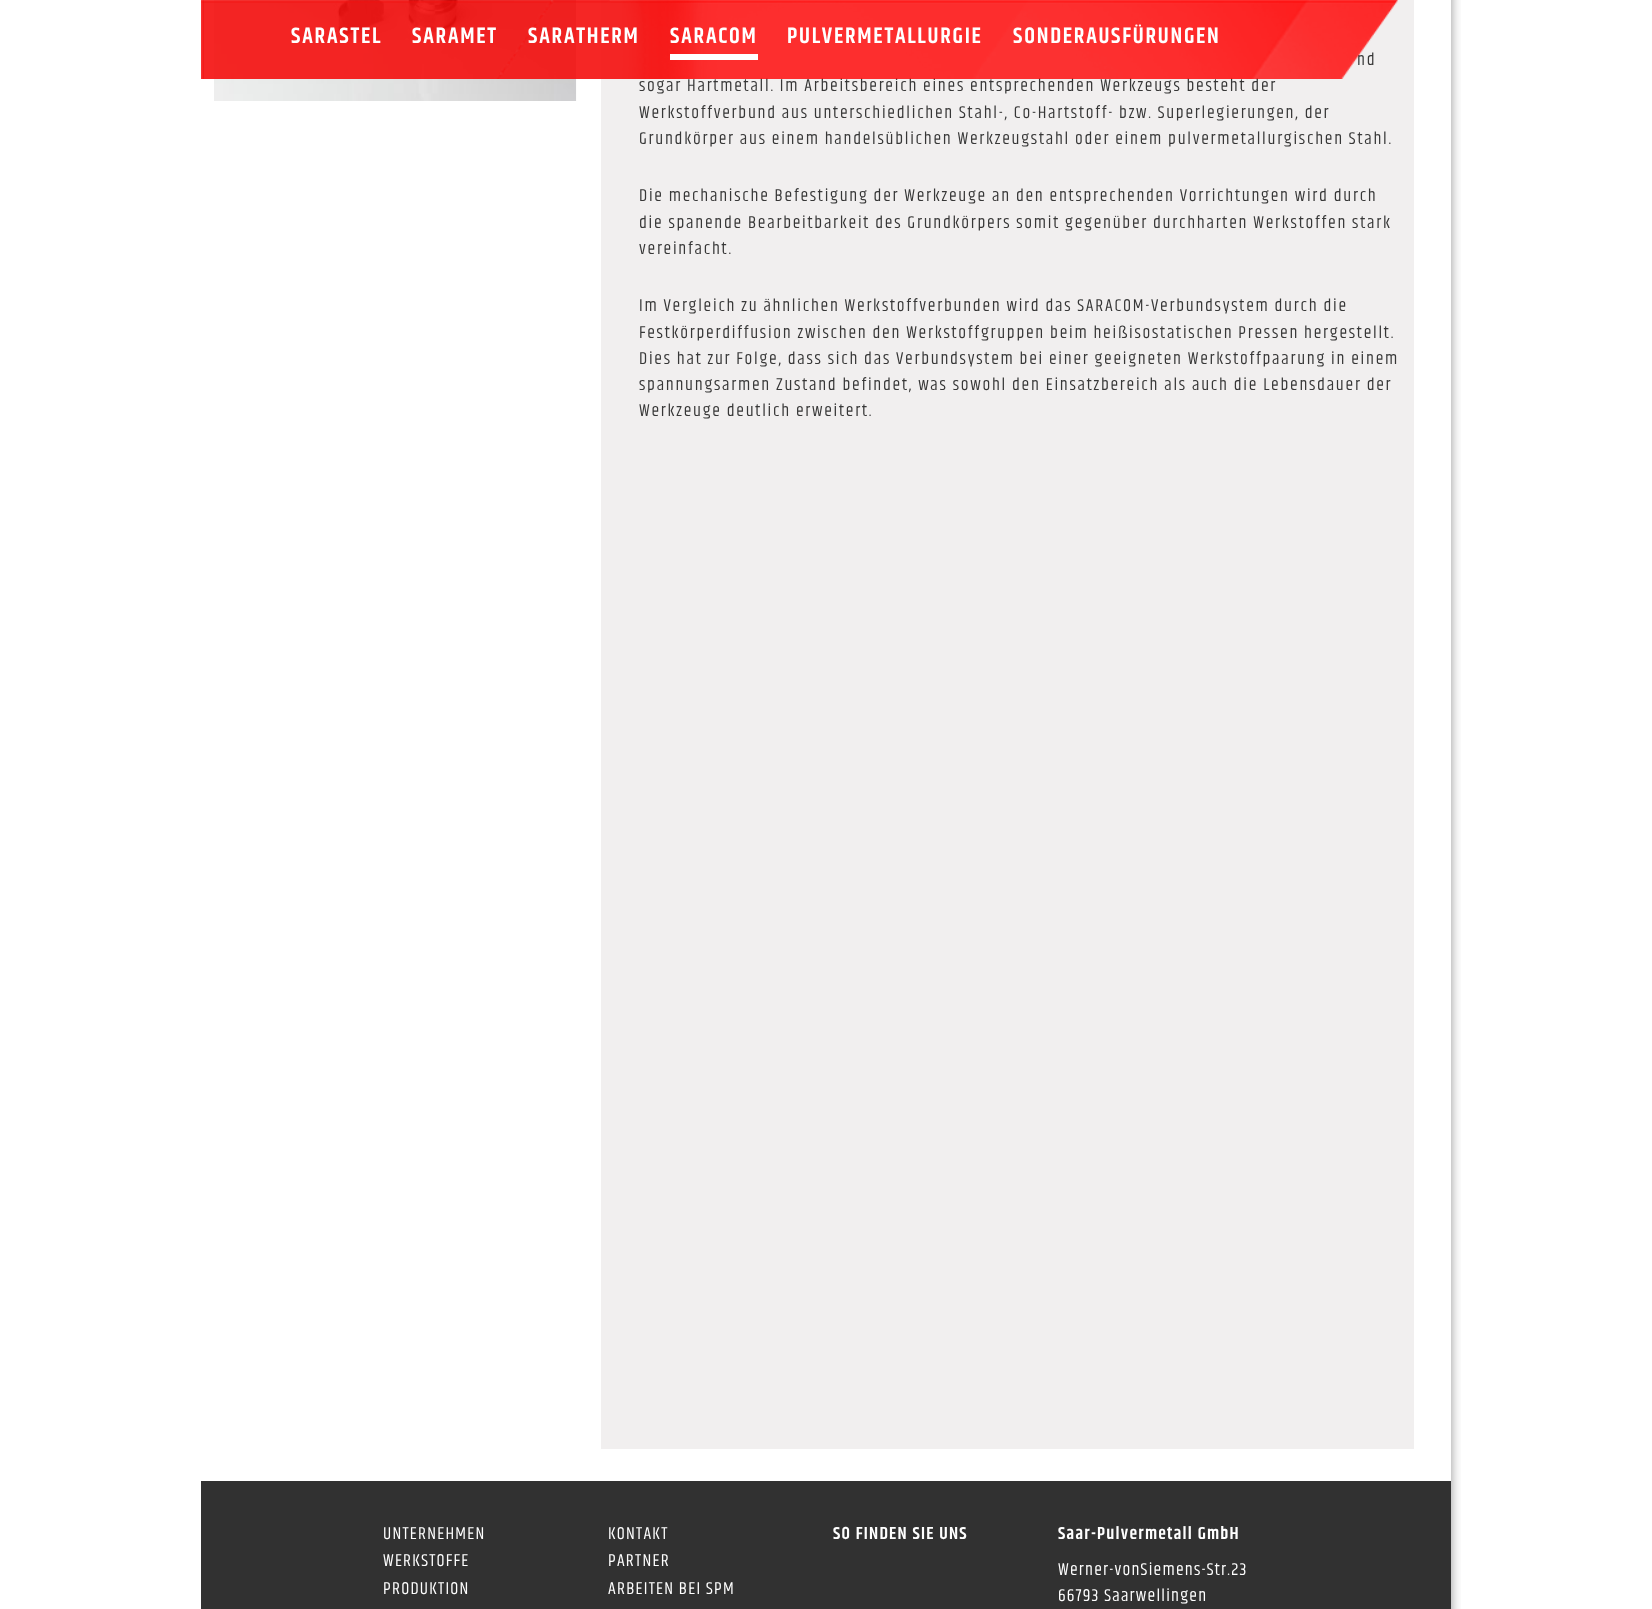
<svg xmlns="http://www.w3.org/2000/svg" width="1652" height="1609">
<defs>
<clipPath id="clip1"><rect x="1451" y="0" width="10" height="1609"/></clipPath>
</defs>
<rect width="100%" height="100%" fill="#fff"/>
<g clip-path="url(#clip1)">
<rect x="219" y="-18" width="1232" height="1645" fill="#0000006b" filter="blur(6px)"/>
</g>
<rect x="601" width="813" height="1449" fill="#f1efef"/>
<image x="214" y="0" width="363" height="101" href="media/2.png"/>
<text x="1357" y="65" style="font-family:Khand;font-size:17.5px;letter-spacing:1.75px;fill:#373737">nd</text>
<text x="639" y="91" style="font-family:Khand;font-size:17.5px;letter-spacing:1.75px;fill:#373737">sogar Hartmetall. Im Arbeitsbereich eines entsprechenden Werkzeugs besteht der</text>
<image x="201" y="0" width="1197" height="79" href="media/1.png"/>
<text x="291" y="43" style="font-family:Khand;font-size:22.5px;font-weight:600;letter-spacing:1.75px;fill:#fff">SARASTEL</text>
<text x="412" y="43" style="font-family:Khand;font-size:22.5px;font-weight:600;letter-spacing:1.75px;fill:#fff">SARAMET</text>
<text x="528" y="43" style="font-family:Khand;font-size:22.5px;font-weight:600;letter-spacing:1.75px;fill:#fff">SARATHERM</text>
<rect x="670" y="54" width="88" height="6" fill="#fff"/>
<text x="670" y="43" style="font-family:Khand;font-size:22.5px;font-weight:600;letter-spacing:1.75px;fill:#fff">SARACOM</text>
<text x="787" y="43" style="font-family:Khand;font-size:22.5px;font-weight:600;letter-spacing:1.75px;fill:#fff">PULVERMETALLURGIE</text>
<text x="1013" y="43" style="font-family:Khand;font-size:22.5px;font-weight:600;letter-spacing:1.75px;fill:#fff">SONDERAUSFÜRUNGEN</text>
<text x="639" y="118" style="font-family:Khand;font-size:17.5px;letter-spacing:1.75px;fill:#373737">Werkstoffverbund aus unterschiedlichen Stahl-, Co-Hartstoff- bzw. Superlegierungen, der</text>
<text x="639" y="144" style="font-family:Khand;font-size:17.5px;letter-spacing:1.75px;fill:#373737">Grundkörper aus einem handelsüblichen Werkzeugstahl oder einem pulvermetallurgischen Stahl.</text>
<text x="639" y="201" style="font-family:Khand;font-size:17.5px;letter-spacing:1.75px;fill:#373737">Die mechanische Befestigung der Werkzeuge an den entsprechenden Vorrichtungen wird durch</text>
<text x="639" y="228" style="font-family:Khand;font-size:17.5px;letter-spacing:1.75px;fill:#373737">die spanende Bearbeitbarkeit des Grundkörpers somit gegenüber durchharten Werkstoffen stark</text>
<text x="639" y="254" style="font-family:Khand;font-size:17.5px;letter-spacing:1.75px;fill:#373737">vereinfacht.</text>
<text x="639" y="311" style="font-family:Khand;font-size:17.5px;letter-spacing:1.75px;fill:#373737">Im Vergleich zu ähnlichen Werkstoffverbunden wird das SARACOM-Verbundsystem durch die</text>
<text x="639" y="338" style="font-family:Khand;font-size:17.5px;letter-spacing:1.75px;fill:#373737">Festkörperdiffusion zwischen den Werkstoffgruppen beim heißisostatischen Pressen hergestellt.</text>
<text x="639" y="364" style="font-family:Khand;font-size:17.5px;letter-spacing:1.75px;fill:#373737">Dies hat zur Folge, dass sich das Verbundsystem bei einer geeigneten Werkstoffpaarung in einem</text>
<text x="639" y="390" style="font-family:Khand;font-size:17.5px;letter-spacing:1.75px;fill:#373737">spannungsarmen Zustand befindet, was sowohl den Einsatzbereich als auch die Lebensdauer der</text>
<text x="639" y="416" style="font-family:Khand;font-size:17.5px;letter-spacing:1.75px;fill:#373737">Werkzeuge deutlich erweitert.</text>
<rect x="201" y="1481" width="1250" height="128" fill="#313131"/>
<text x="383" y="1539" style="font-family:Khand;font-size:17.5px;letter-spacing:1.25px;fill:#fff">UNTERNEHMEN</text>
<text x="383" y="1566" style="font-family:Khand;font-size:17.5px;letter-spacing:1.25px;fill:#fff">WERKSTOFFE</text>
<text x="383" y="1594" style="font-family:Khand;font-size:17.5px;letter-spacing:1.25px;fill:#fff">PRODUKTION</text>
<text x="608" y="1539" style="font-family:Khand;font-size:17.5px;letter-spacing:1.25px;fill:#fff">KONTAKT</text>
<text x="608" y="1566" style="font-family:Khand;font-size:17.5px;letter-spacing:1.25px;fill:#fff">PARTNER</text>
<text x="608" y="1594" style="font-family:Khand;font-size:17.5px;letter-spacing:1.25px;fill:#fff">ARBEITEN BEI SPM</text>
<text x="833" y="1539" style="font-family:Khand;font-size:17.5px;font-weight:600;letter-spacing:1.25px;fill:#fff">SO FINDEN SIE UNS</text>
<text x="1058" y="1539" style="font-family:Khand;font-size:17.5px;font-weight:600;letter-spacing:1.25px;fill:#fff">Saar-Pulvermetall GmbH</text>
<text x="1058" y="1575" style="font-family:Khand;font-size:17.5px;letter-spacing:1.25px;fill:#fff">Werner-vonSiemens-Str.23</text>
<text x="1058" y="1601" style="font-family:Khand;font-size:17.5px;letter-spacing:1.25px;fill:#fff">66793 Saarwellingen</text>
</svg>
